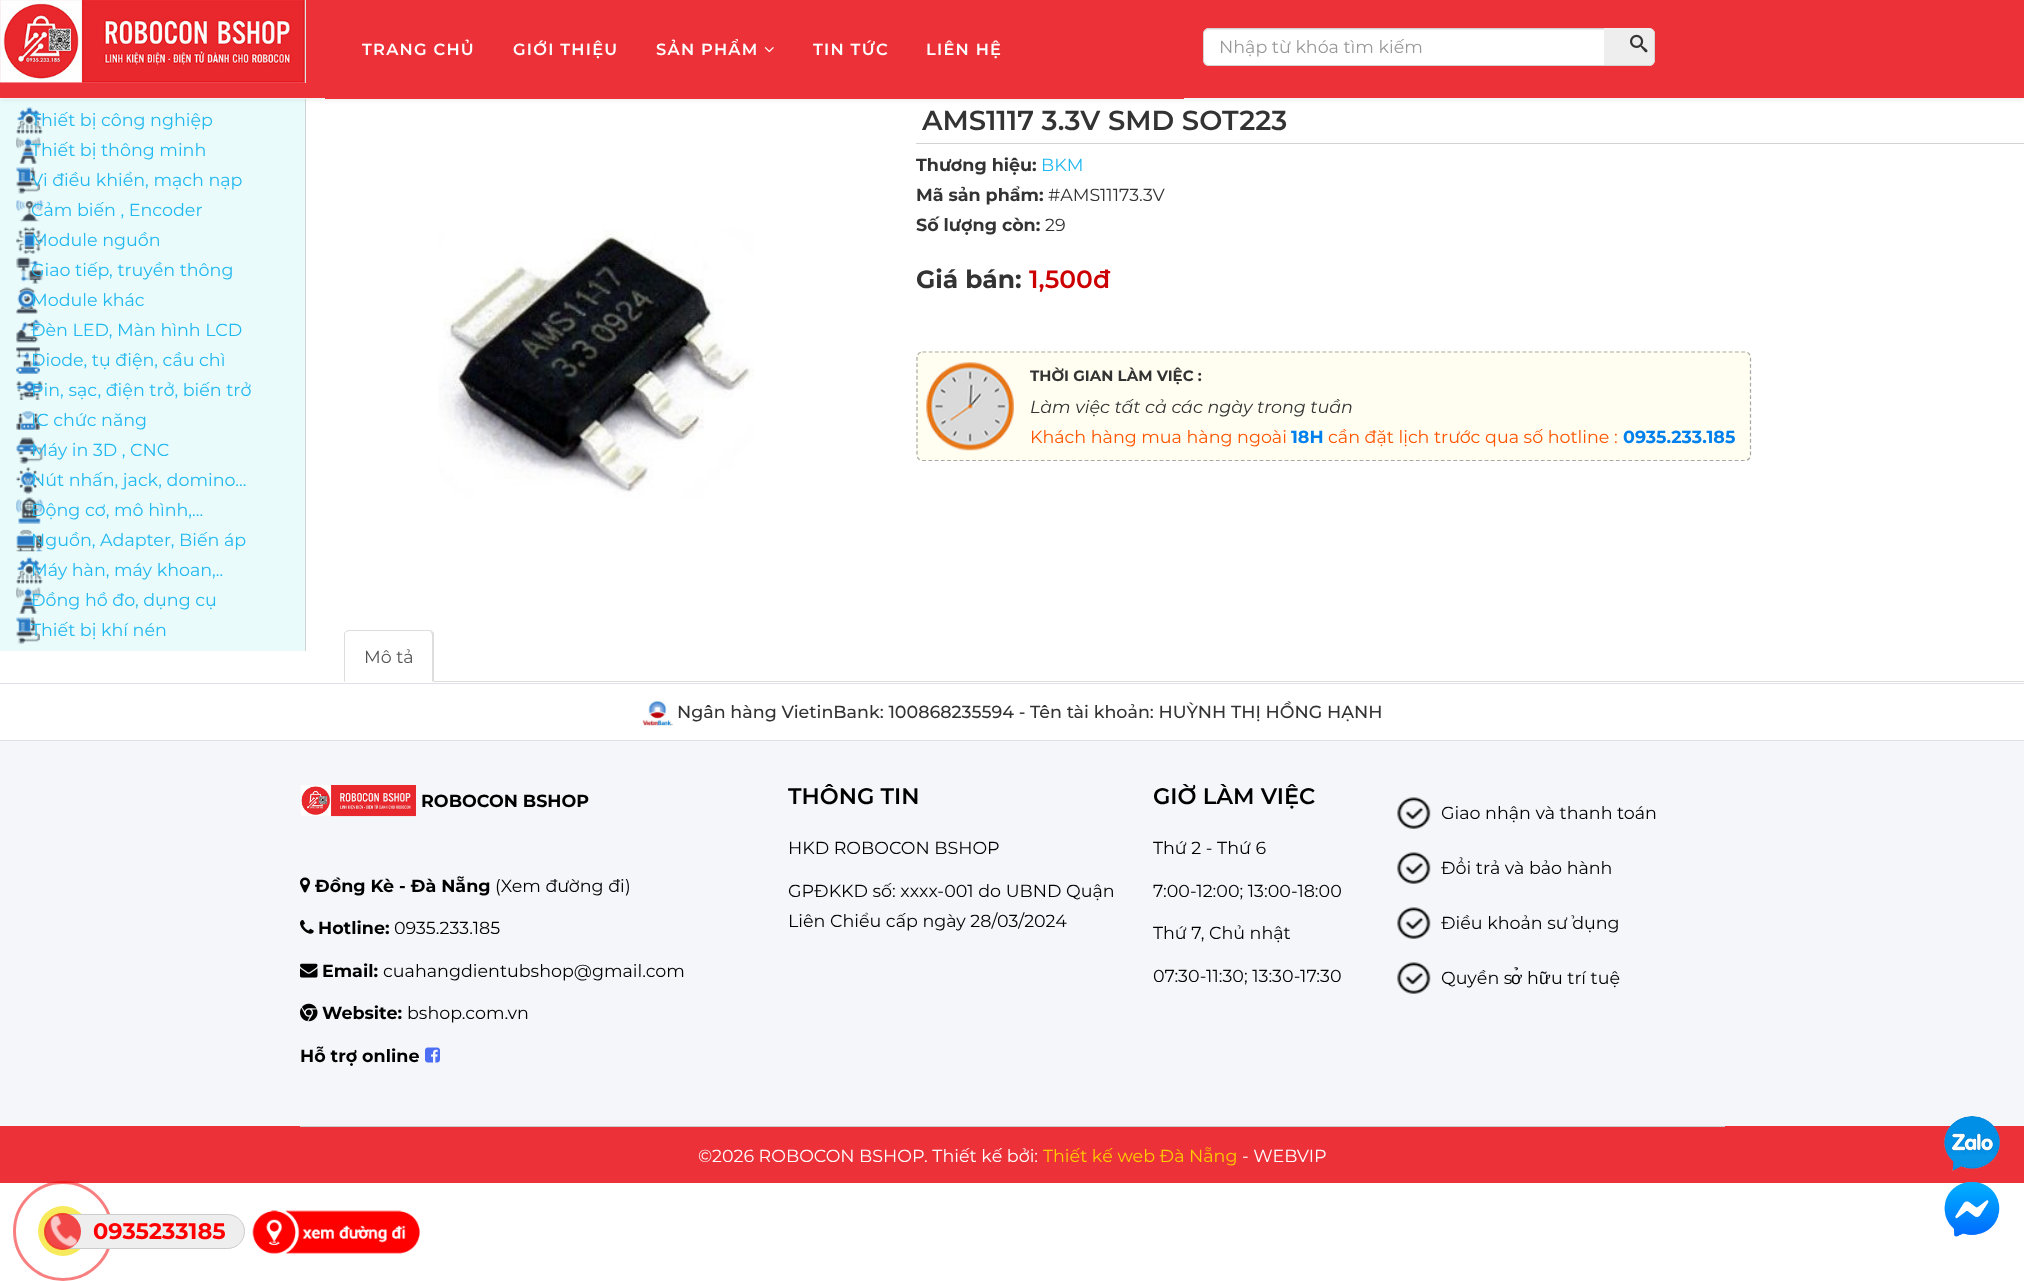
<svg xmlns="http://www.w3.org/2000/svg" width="2024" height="1281">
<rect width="100%" height="100%" fill="#fff"/>
<rect y="99" width="305" height="552" fill="#e9fbfb"/>
<rect x="305" y="99" width="1" height="552" fill="#d3d3d3"/>
<image x="16" y="107" width="27" height="27" href="media/4.png"/>
<rect y="4" width="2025" height="97" fill="#0000000d" filter="blur(2px)"/>
<rect width="2024" height="98" fill="#ec3138"/>
<rect x="305" width="1" height="83" fill="#dbe3e3"/>
<image x="0" y="0" width="305" height="83" href="media/1.png"/>
<rect x="325" y="98" width="859" height="1" fill="#ec3138"/>
<text x="362" y="55" style="font-family:Montserrat;font-size:16.25px;font-weight:600;letter-spacing:1.25px;fill:#fff">TRANG CHỦ</text>
<text x="513" y="55" style="font-family:Montserrat;font-size:16.25px;font-weight:600;letter-spacing:1.25px;fill:#fff">GIỚI THIỆU</text>
<text x="656" y="55" style="font-family:Montserrat;font-size:16.25px;font-weight:600;letter-spacing:1.25px;fill:#fff">SẢN PHẨM</text>
<image x="764" y="47" width="10" height="6" href="media/2.png"/>
<text x="813" y="55" style="font-family:Montserrat;font-size:16.25px;font-weight:600;letter-spacing:1.25px;fill:#fff">TIN TỨC</text>
<text x="926" y="55" style="font-family:Montserrat;font-size:16.25px;font-weight:600;letter-spacing:1.25px;fill:#fff">LIÊN HỆ</text>
<rect x="1203" y="28" width="452" height="38" rx="6" fill="#fff"/>
<path d="M1209 30h440c3 0 5 2 5 5c0-3-2-6-5-6h-440c-3 0-5 3-5 6c0-3 2-5 5-5z" fill="#ececec"/>
<rect x="1203.5" y="28.5" width="451" height="37" rx="5.5" fill="none" stroke="#d3d3d3"/>
<text x="1219" y="53" style="font-family:Montserrat;font-size:17.5px;fill:#999">Nhập từ khóa tìm kiếm</text>
<path d="M1604 28h44c3.5 0 6 2.5 6 6v25c0 3.5-2.5 6-6 6h-44z" fill="#eee"/>
<image x="1630" y="34" width="18" height="19" href="media/3.png"/>
<text x="31" y="126" style="font-family:Montserrat;font-size:17.5px;fill:#22b8f0">Thiết bị công nghiệp</text>
<image x="16" y="137" width="25" height="27" href="media/5.png"/>
<text x="31" y="156" style="font-family:Montserrat;font-size:17.5px;fill:#22b8f0">Thiết bị thông minh</text>
<image x="16" y="167" width="24" height="27" href="media/6.png"/>
<text x="31" y="186" style="font-family:Montserrat;font-size:17.5px;fill:#22b8f0">Vi điều khiển, mạch nạp</text>
<image x="16" y="200" width="28" height="22" href="media/7.png"/>
<text x="31" y="216" style="font-family:Montserrat;font-size:17.5px;fill:#22b8f0">Cảm biến , Encoder</text>
<image x="16" y="227" width="27" height="27" href="media/8.png"/>
<text x="31" y="246" style="font-family:Montserrat;font-size:17.5px;fill:#22b8f0">Module nguồn</text>
<image x="16" y="257" width="28" height="27" href="media/9.png"/>
<text x="31" y="276" style="font-family:Montserrat;font-size:17.5px;fill:#22b8f0">Giao tiếp, truyền thông</text>
<image x="16" y="287" width="22" height="27" href="media/10.png"/>
<text x="31" y="306" style="font-family:Montserrat;font-size:17.5px;fill:#22b8f0">Module khác</text>
<image x="16" y="318" width="25" height="25" href="media/11.png"/>
<text x="31" y="336" style="font-family:Montserrat;font-size:17.5px;fill:#22b8f0">Đèn LED, Màn hình LCD</text>
<image x="16" y="347" width="24" height="27" href="media/12.png"/>
<text x="31" y="366" style="font-family:Montserrat;font-size:17.5px;fill:#22b8f0">Diode, tụ điện, cầu chì</text>
<image x="16" y="381" width="27" height="19" href="media/13.png"/>
<text x="31" y="396" style="font-family:Montserrat;font-size:17.5px;fill:#22b8f0">Pin, sạc, điện trở, biến trở</text>
<image x="16" y="411" width="24" height="19" href="media/14.png"/>
<text x="31" y="426" style="font-family:Montserrat;font-size:17.5px;fill:#22b8f0">IC chức năng</text>
<image x="16" y="437" width="28" height="27" href="media/15.png"/>
<text x="31" y="456" style="font-family:Montserrat;font-size:17.5px;fill:#22b8f0">Máy in 3D , CNC</text>
<image x="16" y="467" width="24" height="27" href="media/16.png"/>
<text x="31" y="486" style="font-family:Montserrat;font-size:17.5px;fill:#22b8f0">Nút nhấn, jack, domino...</text>
<image x="16" y="497" width="28" height="27" href="media/17.png"/>
<text x="31" y="516" style="font-family:Montserrat;font-size:17.5px;fill:#22b8f0">Động cơ, mô hình,...</text>
<image x="16" y="529" width="27" height="23" href="media/18.png"/>
<text x="31" y="546" style="font-family:Montserrat;font-size:17.5px;fill:#22b8f0">Nguồn, Adapter, Biến áp</text>
<image x="16" y="557" width="27" height="27" href="media/4.png"/>
<text x="31" y="576" style="font-family:Montserrat;font-size:17.5px;fill:#22b8f0">Máy hàn, máy khoan,..</text>
<image x="16" y="587" width="25" height="27" href="media/5.png"/>
<text x="31" y="606" style="font-family:Montserrat;font-size:17.5px;fill:#22b8f0">Đồng hồ đo, dụng cụ</text>
<image x="16" y="617" width="24" height="27" href="media/6.png"/>
<text x="31" y="636" style="font-family:Montserrat;font-size:17.5px;fill:#22b8f0">Thiết bị khí nén</text>
<image x="438" y="229" width="316" height="269" href="media/19.png"/>
<rect x="916" y="143" width="1108" height="1" fill="#d3d3d3"/>
<text x="922" y="130" style="font-family:Montserrat;font-size:27.5px;font-weight:600;fill:#333">AMS1117 3.3V SMD SOT223</text>
<text x="916" y="171" style="font-family:Montserrat;font-size:17.5px;font-weight:bold;fill:#333">Thương hiệu:</text>
<text x="1041" y="171" style="font-family:Montserrat;font-size:17.5px;fill:#22b8f0">BKM</text>
<text x="916" y="201" style="font-family:Montserrat;font-size:17.5px;font-weight:bold;fill:#333">Mã sản phẩm:</text>
<text x="1048" y="201" style="font-family:Montserrat;font-size:17.5px;fill:#333">#AMS11173.3V</text>
<text x="916" y="231" style="font-family:Montserrat;font-size:17.5px;font-weight:bold;fill:#333">Số lượng còn:</text>
<text x="1045" y="231" style="font-family:Montserrat;font-size:17.5px;fill:#333">29</text>
<text x="916" y="288" style="font-family:Montserrat;font-size:25px;font-weight:bold;fill:#333">Giá bán:</text>
<text x="1029" y="288" style="font-family:Montserrat;font-size:25px;font-weight:600;fill:#c00">1,500đ</text>
<rect x="916" y="351" width="835" height="110" rx="6" fill="#fffef1"/>
<image x="926" y="362" width="88" height="89" href="media/20.png"/>
<path d="M922.5 352h822.5c3 0 5.5 2.5 5.5 5.5v97.5c0 3-2.5 5.5-5.5 5.5h-822.5c-3 0-5.5-2.5-5.5-5.5v-97.5c0-3 2.5-5.5 5.5-5.5z" fill="none" stroke="#a7a7a7" stroke-width="1.2" stroke-dasharray="3.75 2.5"/>
<text x="1030" y="381" style="font-family:Montserrat;font-size:15px;font-weight:bold;fill:#333">THỜI GIAN LÀM VIỆC :</text>
<text x="1030" y="413" style="font-family:Montserrat;font-size:17.5px;font-style:italic;fill:#333">Làm việc tất cả các ngày trong tuần</text>
<text x="1030" y="443" style="font-family:Montserrat;font-size:17.5px;fill:#ff5501">Khách hàng mua hàng ngoài</text>
<text x="1291" y="443" style="font-family:Montserrat;font-size:17.5px;font-weight:bold;fill:#0080ec">18H</text>
<text x="1328" y="443" style="font-family:Montserrat;font-size:17.5px;fill:#ff5501">cần đặt lịch trước qua số hotline :</text>
<text x="1623" y="443" style="font-family:Montserrat;font-size:17.5px;font-weight:bold;fill:#0080ec">0935.233.185</text>
<rect x="434" y="681" width="1590" height="1" fill="#ddd"/>
<path d="M349 630c-2 0-3 1-4 2h1l3-1h80c1 0 2 1 2 1l1-1c0-1-2-1-3-1z" fill="#ddd"/>
<path d="M434 682l-2-1v-46l-1-3l1-1l2 2z" fill="#ddd"/>
<path d="M345 632c-1 0-1 2-1 3v47l1-1v-46c0-1 0-2 1-3z" fill="#ddd"/>
<text x="364" y="663" style="font-family:Montserrat;font-size:17.5px;fill:#555">Mô tả</text>
<rect y="683" width="2024" height="1" fill="#dee2e6"/>
<rect y="740" width="2024" height="1" fill="#dee2e6"/>
<image x="642" y="700" width="31" height="26" href="media/21.png"/>
<text x="677" y="718" style="font-family:Montserrat;font-size:17.5px;font-weight:500;fill:#333">Ngân hàng VietinBank: 100868235594 - Tên tài khoản: HUỲNH THỊ HỒNG HẠNH</text>
<rect y="741" width="2024" height="385" fill="#f4f6f9"/>
<image x="300" y="785" width="116" height="32" href="media/22.png"/>
<text x="421" y="807" style="font-family:Montserrat;font-size:17.5px;font-weight:bold;fill:#000">ROBOCON BSHOP</text>
<image x="300" y="877" width="10" height="16" href="media/23.png"/>
<text x="315" y="892" style="font-family:Montserrat;font-size:17.5px;font-weight:bold;fill:#000">Đồng Kè - Đà Nẵng</text>
<text x="495" y="892" style="font-family:Montserrat;font-size:17.5px;fill:#000">(Xem đường đi</text>
<text x="625" y="892" style="font-family:Montserrat;font-size:17.5px;fill:#000">)</text>
<image x="300" y="920" width="14" height="14" href="media/24.png"/>
<text x="318" y="934" style="font-family:Montserrat;font-size:17.5px;font-weight:bold;fill:#000">Hotline:</text>
<text x="394" y="934" style="font-family:Montserrat;font-size:17.5px;fill:#000">0935.233.185</text>
<image x="300" y="963" width="18" height="15" href="media/25.png"/>
<text x="322" y="977" style="font-family:Montserrat;font-size:17.5px;font-weight:bold;fill:#000">Email:</text>
<text x="383" y="977" style="font-family:Montserrat;font-size:17.5px;fill:#000">cuahangdientubshop@gmail.com</text>
<image x="300" y="1003" width="18" height="19" href="media/26.png"/>
<text x="322" y="1019" style="font-family:Montserrat;font-size:17.5px;font-weight:bold;fill:#000">Website:</text>
<text x="407" y="1019" style="font-family:Montserrat;font-size:17.5px;fill:#000">bshop.com.vn</text>
<text x="300" y="1062" style="font-family:Montserrat;font-size:17.5px;font-weight:bold;fill:#000">Hỗ trợ online</text>
<image x="425" y="1047" width="15" height="16" href="media/27.png"/>
<text x="788" y="804" style="font-family:Montserrat;font-size:22.5px;font-weight:600;fill:#000">THÔNG TIN</text>
<text x="788" y="854" style="font-family:Montserrat;font-size:17.5px;fill:#000">HKD ROBOCON BSHOP</text>
<text x="788" y="897" style="font-family:Montserrat;font-size:17.5px;fill:#000">GPĐKKD số: xxxx-001 do UBND Quận</text>
<text x="788" y="927" style="font-family:Montserrat;font-size:17.5px;fill:#000">Liên Chiểu cấp ngày 28/03/2024</text>
<text x="1153" y="804" style="font-family:Montserrat;font-size:22.5px;font-weight:600;fill:#000">GIỜ LÀM VIỆC</text>
<text x="1153" y="854" style="font-family:Montserrat;font-size:17.5px;fill:#000">Thứ 2 - Thứ 6</text>
<text x="1153" y="897" style="font-family:Montserrat;font-size:17.5px;fill:#000">7:00-12:00; 13:00-18:00</text>
<text x="1153" y="939" style="font-family:Montserrat;font-size:17.5px;fill:#000">Thứ 7, Chủ nhật</text>
<text x="1153" y="982" style="font-family:Montserrat;font-size:17.5px;fill:#000">07:30-11:30; 13:30-17:30</text>
<image x="1397" y="797" width="34" height="32" href="media/28.png"/>
<text x="1441" y="819" style="font-family:Montserrat;font-size:17.5px;fill:#000">Giao nhận và thanh toán</text>
<image x="1397" y="852" width="34" height="32" href="media/28.png"/>
<text x="1441" y="874" style="font-family:Montserrat;font-size:17.5px;fill:#000">Đổi trả và bảo hành</text>
<image x="1397" y="907" width="34" height="32" href="media/28.png"/>
<text x="1441" y="929" style="font-family:Montserrat;font-size:17.5px;fill:#000">Điều khoản sử dụng</text>
<image x="1397" y="962" width="34" height="32" href="media/28.png"/>
<text x="1441" y="984" style="font-family:Montserrat;font-size:17.5px;fill:#000">Quyền s</text>
<text x="1511" y="984" style="font-family:Liberation Sans;font-size:17.5px;fill:#000">ở</text>
<text x="1527" y="984" style="font-family:Montserrat;font-size:17.5px;fill:#000">h</text>
<text x="1539" y="984" style="font-family:Liberation Sans;font-size:17.5px;fill:#000">ữ</text>
<text x="1551" y="984" style="font-family:Montserrat;font-size:17.5px;fill:#000">u trí tuệ</text>
<rect y="1126" width="2024" height="57" fill="#ec3138"/>
<rect x="300" y="1126" width="1425" height="1" fill="#ccc"/>
<text x="698" y="1162" style="font-family:Montserrat;font-size:17.5px;fill:#fff">©2026 ROBOCON BSHOP. Thiết kế bởi:</text>
<text x="1043" y="1162" style="font-family:Montserrat;font-size:17.5px;fill:#fc0">Thiết kế web Đà Nẵng</text>
<text x="1242" y="1162" style="font-family:Montserrat;font-size:17.5px;fill:#fff">- WEBVIP</text>
<image x="1944" y="1116" width="56" height="55" href="media/29.png"/>
<image x="1944" y="1182" width="56" height="55" href="media/30.png"/>
<circle cx="63" cy="1231" r="48.5" fill="none" stroke="#f2000080" stroke-width="3"/>
<circle cx="63" cy="1231" r="25" fill="#f7eb5d"/>
<rect x="45.5" y="1214.5" width="199" height="34" rx="17" fill="#eee" stroke="#ccc"/>
<circle cx="62.5" cy="1231.5" r="18.5" fill="#f20000b3"/>
<image x="50" y="1215" width="27" height="32" href="media/31.png"/>
<text x="93" y="1239" style="font-family:Montserrat;font-size:22.5px;font-weight:bold;fill:#f00">0935233185</text>
<image x="252" y="1210" width="168" height="44" href="media/32.png"/>
</svg>
